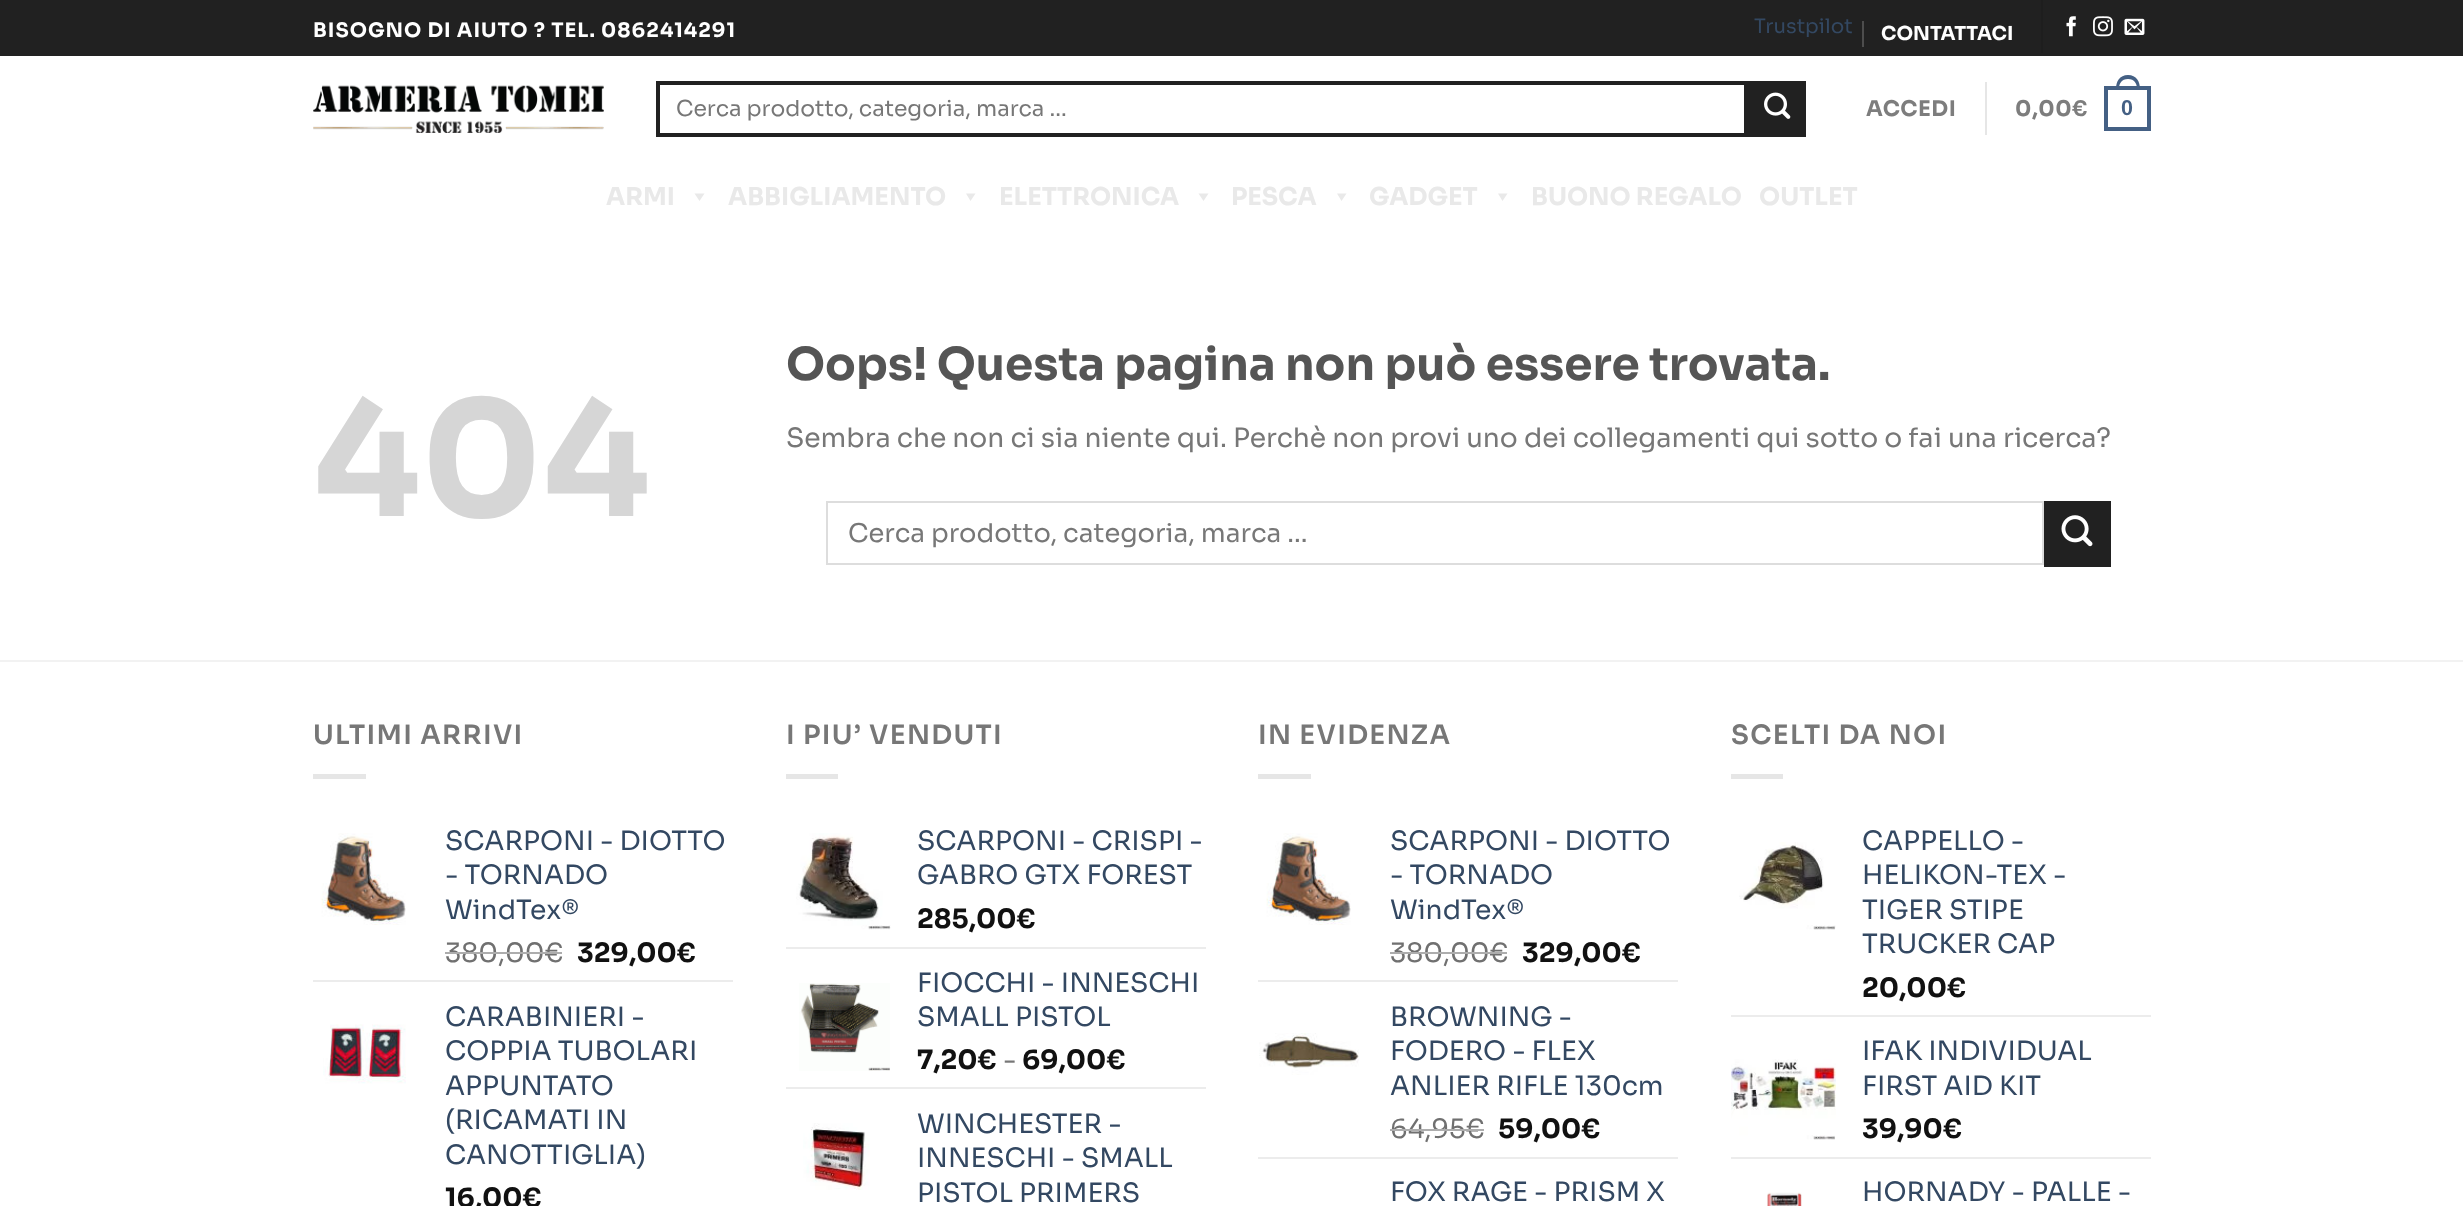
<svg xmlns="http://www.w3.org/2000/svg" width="2463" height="1206">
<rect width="100%" height="100%" fill="#fff"/>
<rect width="2463" height="56" fill="#212121"/>
<text x="313" y="37" style="font-family:Sora;font-size:19.95px;font-weight:bold;letter-spacing:1px;fill:#fff">BISOGNO DI AIUTO ? TEL. 0862414291</text>
<text x="1754" y="33" style="font-family:Sora;font-size:19.95px;fill:#334862">Trustpilot</text>
<rect x="1862" y="21" width="2" height="26" fill="#4d4d4d"/>
<text x="1881" y="40" style="font-family:Sora;font-size:19.25px;font-weight:bold;fill:#fff">CONTATTACI</text>
<rect x="2041" width="2" height="53" fill="#1e1e1e"/>
<image x="2066" y="16" width="10" height="21" href="media/1.png"/>
<image x="2093" y="16" width="20" height="21" href="media/2.png"/>
<image x="2124" y="18" width="21" height="17" href="media/3.png"/>
<image x="313" y="85" width="291" height="48" href="media/4.png"/>
<rect x="658" y="83" width="1088" height="52" fill="none" stroke="#212121" stroke-width="4"/>
<text x="676" y="116" style="font-family:Sora;font-size:21.9px;fill:#777">Cerca prodotto, categoria, marca ...</text>
<rect x="1748" y="81" width="58" height="56" fill="#212121"/>
<image x="1764" y="92" width="27" height="27" href="media/5.png"/>
<text x="1866" y="116" style="font-family:Sora;font-size:21.5px;font-weight:bold;letter-spacing:0.5px;fill:#7d7d7d">ACCEDI</text>
<rect x="1985" y="82" width="2" height="53" fill="#e6e6e6"/>
<text x="2015" y="116" style="font-family:Sora;font-size:21.5px;font-weight:bold;letter-spacing:0.5px;fill:#7d7d7d">0,00€</text>
<rect x="2106" y="88" width="43" height="41" fill="none" stroke="#446084" stroke-width="4"/>
<path d="M2128 75c8.5 0 12 6.5 12 14h-24c0-7.5 3.5-14 12-14zm0 4c6.5 0 9 4.5 9 10h-18c0-5.5 2.5-10 9-10z" fill="#446084" fill-rule="evenodd"/>
<text x="2121" y="115" style="font-family:Liberation Sans;font-size:21.5px;font-weight:bold;letter-spacing:0.5px;fill:#446084">0</text>
<text x="606" y="205" style="font-family:Sora;font-size:24.5px;font-weight:bold;fill:#e9e9e9">ARMI</text>
<path d="M704.5 193.5l-5 7.5l-5-7.5z" fill="#e9e9e9"/>
<text x="728" y="205" style="font-family:Sora;font-size:24.5px;font-weight:bold;fill:#e9e9e9">ABBIGLIAMENTO</text>
<path d="M975.5 193.5l-5 7.5l-4.5-7.5z" fill="#e9e9e9"/>
<text x="999" y="205" style="font-family:Sora;font-size:24.5px;font-weight:bold;fill:#e9e9e9">ELETTRONICA</text>
<path d="M1208.5 193.5l-5 7.5l-5-7.5z" fill="#e9e9e9"/>
<text x="1231" y="205" style="font-family:Sora;font-size:24.5px;font-weight:bold;fill:#e9e9e9">PESCA</text>
<path d="M1346.5 193.5l-5 7.5l-4.5-7.5z" fill="#e9e9e9"/>
<text x="1369" y="205" style="font-family:Sora;font-size:24.5px;font-weight:bold;fill:#e9e9e9">GADGET</text>
<path d="M1507.5 193.5l-5 7.5l-4.5-7.5z" fill="#e9e9e9"/>
<text x="1531" y="205" style="font-family:Sora;font-size:24.5px;font-weight:bold;fill:#e9e9e9">BUONO REGALO</text>
<text x="1759" y="205" style="font-family:Sora;font-size:24.5px;font-weight:bold;fill:#e9e9e9">OUTLET</text>
<text x="313" y="516" style="font-family:Sora;font-size:160px;font-weight:bold;fill:#d6d6d6">404</text>
<text x="786" y="380" style="font-family:Sora;font-size:45.25px;font-weight:bold;fill:#555">Oops! Questa pagina non può essere trovata.</text>
<text x="786" y="447" style="font-family:Sora;font-size:26.6px;fill:#777">Sembra che non ci sia niente qui. Perchè non provi uno dei collegamenti qui sotto o fai una ricerca?</text>
<rect x="827" y="502" width="1216" height="62" fill="none" stroke="#ddd" stroke-width="2"/>
<text x="848" y="542" style="font-family:Sora;font-size:25.75px;fill:#777">Cerca prodotto, categoria, marca ...</text>
<rect x="2044" y="501" width="67" height="66" fill="#212121"/>
<image x="2061" y="515" width="32" height="32" href="media/6.png"/>
<rect y="660" width="2463" height="2" fill="#f2f2f2"/>
<text x="313" y="744" style="font-family:Sora;font-size:26.6px;font-weight:600;letter-spacing:1.3px;fill:#777">ULTIMI ARRIVI</text>
<rect x="313" y="774" width="53" height="5" fill="#e6e6e6"/>
<image x="321" y="833" width="85" height="92" href="media/7.png"/>
<text x="445" y="850" style="font-family:Sora;font-size:26.6px;fill:#334862">SCARPONI - DIOTTO</text>
<text x="445" y="884" style="font-family:Sora;font-size:26.6px;fill:#334862">- TORNADO</text>
<text x="445" y="919" style="font-family:Sora;font-size:26.6px;fill:#334862">WindTex®</text>
<text x="445" y="962" style="font-family:Sora;font-size:26.6px;fill:#707070">380,00€</text>
<rect x="445" y="952" width="117" height="2" fill="#adadad"/>
<text x="577" y="962" style="font-family:Sora;font-size:26.6px;font-weight:bold;fill:#111">329,00€</text>
<rect x="313" y="980" width="420" height="2" fill="#ececec"/>
<text x="445" y="1026" style="font-family:Sora;font-size:26.6px;fill:#334862">CARABINIERI -</text>
<image x="323" y="1024" width="83" height="60" href="media/8.png"/>
<text x="445" y="1060" style="font-family:Sora;font-size:26.6px;fill:#334862">COPPIA TUBOLARI</text>
<text x="445" y="1095" style="font-family:Sora;font-size:26.6px;fill:#334862">APPUNTATO</text>
<text x="445" y="1129" style="font-family:Sora;font-size:26.6px;fill:#334862">(RICAMATI IN</text>
<text x="445" y="1164" style="font-family:Sora;font-size:26.6px;fill:#334862">CANOTTIGLIA)</text>
<text x="445" y="1207" style="font-family:Sora;font-size:26.6px;font-weight:bold;fill:#111">16,00€</text>
<text x="786" y="744" style="font-family:Sora;font-size:26.6px;font-weight:600;letter-spacing:1.3px;fill:#777">I PIU’ VENDUTI</text>
<rect x="786" y="774" width="52" height="5" fill="#e6e6e6"/>
<image x="796" y="833" width="95" height="97" href="media/9.png"/>
<text x="917" y="850" style="font-family:Sora;font-size:26.6px;fill:#334862">SCARPONI - CRISPI -</text>
<text x="917" y="884" style="font-family:Sora;font-size:26.6px;fill:#334862">GABRO GTX FOREST</text>
<text x="917" y="928" style="font-family:Sora;font-size:26.6px;font-weight:bold;fill:#111">285,00€</text>
<rect x="786" y="947" width="420" height="2" fill="#ececec"/>
<image x="799" y="983" width="91" height="88" href="media/10.png"/>
<text x="917" y="992" style="font-family:Sora;font-size:26.6px;fill:#334862">FIOCCHI - INNESCHI</text>
<text x="917" y="1026" style="font-family:Sora;font-size:26.6px;fill:#334862">SMALL PISTOL</text>
<text x="917" y="1069" style="font-family:Sora;font-size:26.6px;font-weight:bold;fill:#111">7,20€</text>
<text x="1003" y="1069" style="font-family:Sora;font-size:26.6px;fill:#777">-</text>
<text x="1022" y="1069" style="font-family:Sora;font-size:26.6px;font-weight:bold;fill:#111">69,00€</text>
<rect x="786" y="1087" width="420" height="2" fill="#ececec"/>
<image x="803" y="1123" width="67" height="67" href="media/11.png"/>
<text x="917" y="1133" style="font-family:Sora;font-size:26.6px;fill:#334862">WINCHESTER -</text>
<text x="917" y="1167" style="font-family:Sora;font-size:26.6px;fill:#334862">INNESCHI - SMALL</text>
<text x="917" y="1202" style="font-family:Sora;font-size:26.6px;fill:#334862">PISTOL PRIMERS</text>
<text x="1258" y="744" style="font-family:Sora;font-size:26.6px;font-weight:600;letter-spacing:1.3px;fill:#777">IN EVIDENZA</text>
<rect x="1258" y="774" width="53" height="5" fill="#e6e6e6"/>
<image x="1266" y="833" width="85" height="92" href="media/7.png"/>
<text x="1390" y="850" style="font-family:Sora;font-size:26.6px;fill:#334862">SCARPONI - DIOTTO</text>
<text x="1390" y="884" style="font-family:Sora;font-size:26.6px;fill:#334862">- TORNADO</text>
<text x="1390" y="919" style="font-family:Sora;font-size:26.6px;fill:#334862">WindTex®</text>
<text x="1390" y="962" style="font-family:Sora;font-size:26.6px;fill:#707070">380,00€</text>
<rect x="1390" y="952" width="117" height="2" fill="#adadad"/>
<text x="1522" y="962" style="font-family:Sora;font-size:26.6px;font-weight:bold;fill:#111">329,00€</text>
<rect x="1258" y="980" width="420" height="2" fill="#ececec"/>
<text x="1390" y="1026" style="font-family:Sora;font-size:26.6px;fill:#334862">BROWNING -</text>
<image x="1259" y="1033" width="100" height="42" href="media/12.png"/>
<text x="1390" y="1060" style="font-family:Sora;font-size:26.6px;fill:#334862">FODERO - FLEX</text>
<text x="1390" y="1095" style="font-family:Sora;font-size:26.6px;fill:#334862">ANLIER RIFLE 130cm</text>
<text x="1390" y="1138" style="font-family:Sora;font-size:26.6px;fill:#707070">64,95€</text>
<rect x="1390" y="1129" width="94" height="2" fill="#adadad"/>
<text x="1498" y="1138" style="font-family:Sora;font-size:26.6px;font-weight:bold;fill:#111">59,00€</text>
<rect x="1258" y="1157" width="420" height="2" fill="#ececec"/>
<text x="1390" y="1201" style="font-family:Sora;font-size:26.6px;fill:#334862">FOX RAGE - PRISM X</text>
<text x="1731" y="744" style="font-family:Sora;font-size:26.6px;font-weight:600;letter-spacing:1.3px;fill:#777">SCELTI DA NOI</text>
<rect x="1731" y="774" width="52" height="5" fill="#e6e6e6"/>
<image x="1739" y="842" width="97" height="88" href="media/13.png"/>
<text x="1862" y="850" style="font-family:Sora;font-size:26.6px;fill:#334862">CAPPELLO -</text>
<text x="1862" y="884" style="font-family:Sora;font-size:26.6px;fill:#334862">HELIKON-TEX -</text>
<text x="1862" y="919" style="font-family:Sora;font-size:26.6px;fill:#334862">TIGER STIPE</text>
<text x="1862" y="953" style="font-family:Sora;font-size:26.6px;fill:#334862">TRUCKER CAP</text>
<text x="1862" y="997" style="font-family:Sora;font-size:26.6px;font-weight:bold;fill:#111">20,00€</text>
<rect x="1731" y="1015" width="420" height="2" fill="#ececec"/>
<text x="1862" y="1060" style="font-family:Sora;font-size:26.6px;fill:#334862">IFAK INDIVIDUAL</text>
<image x="1731" y="1059" width="105" height="81" href="media/14.png"/>
<text x="1862" y="1095" style="font-family:Sora;font-size:26.6px;fill:#334862">FIRST AID KIT</text>
<text x="1862" y="1138" style="font-family:Sora;font-size:26.6px;font-weight:bold;fill:#111">39,90€</text>
<rect x="1731" y="1157" width="420" height="2" fill="#ececec"/>
<image x="1767" y="1192" width="35" height="14" href="media/15.png"/>
<text x="1862" y="1201" style="font-family:Sora;font-size:26.6px;fill:#334862">HORNADY - PALLE -</text>
</svg>
